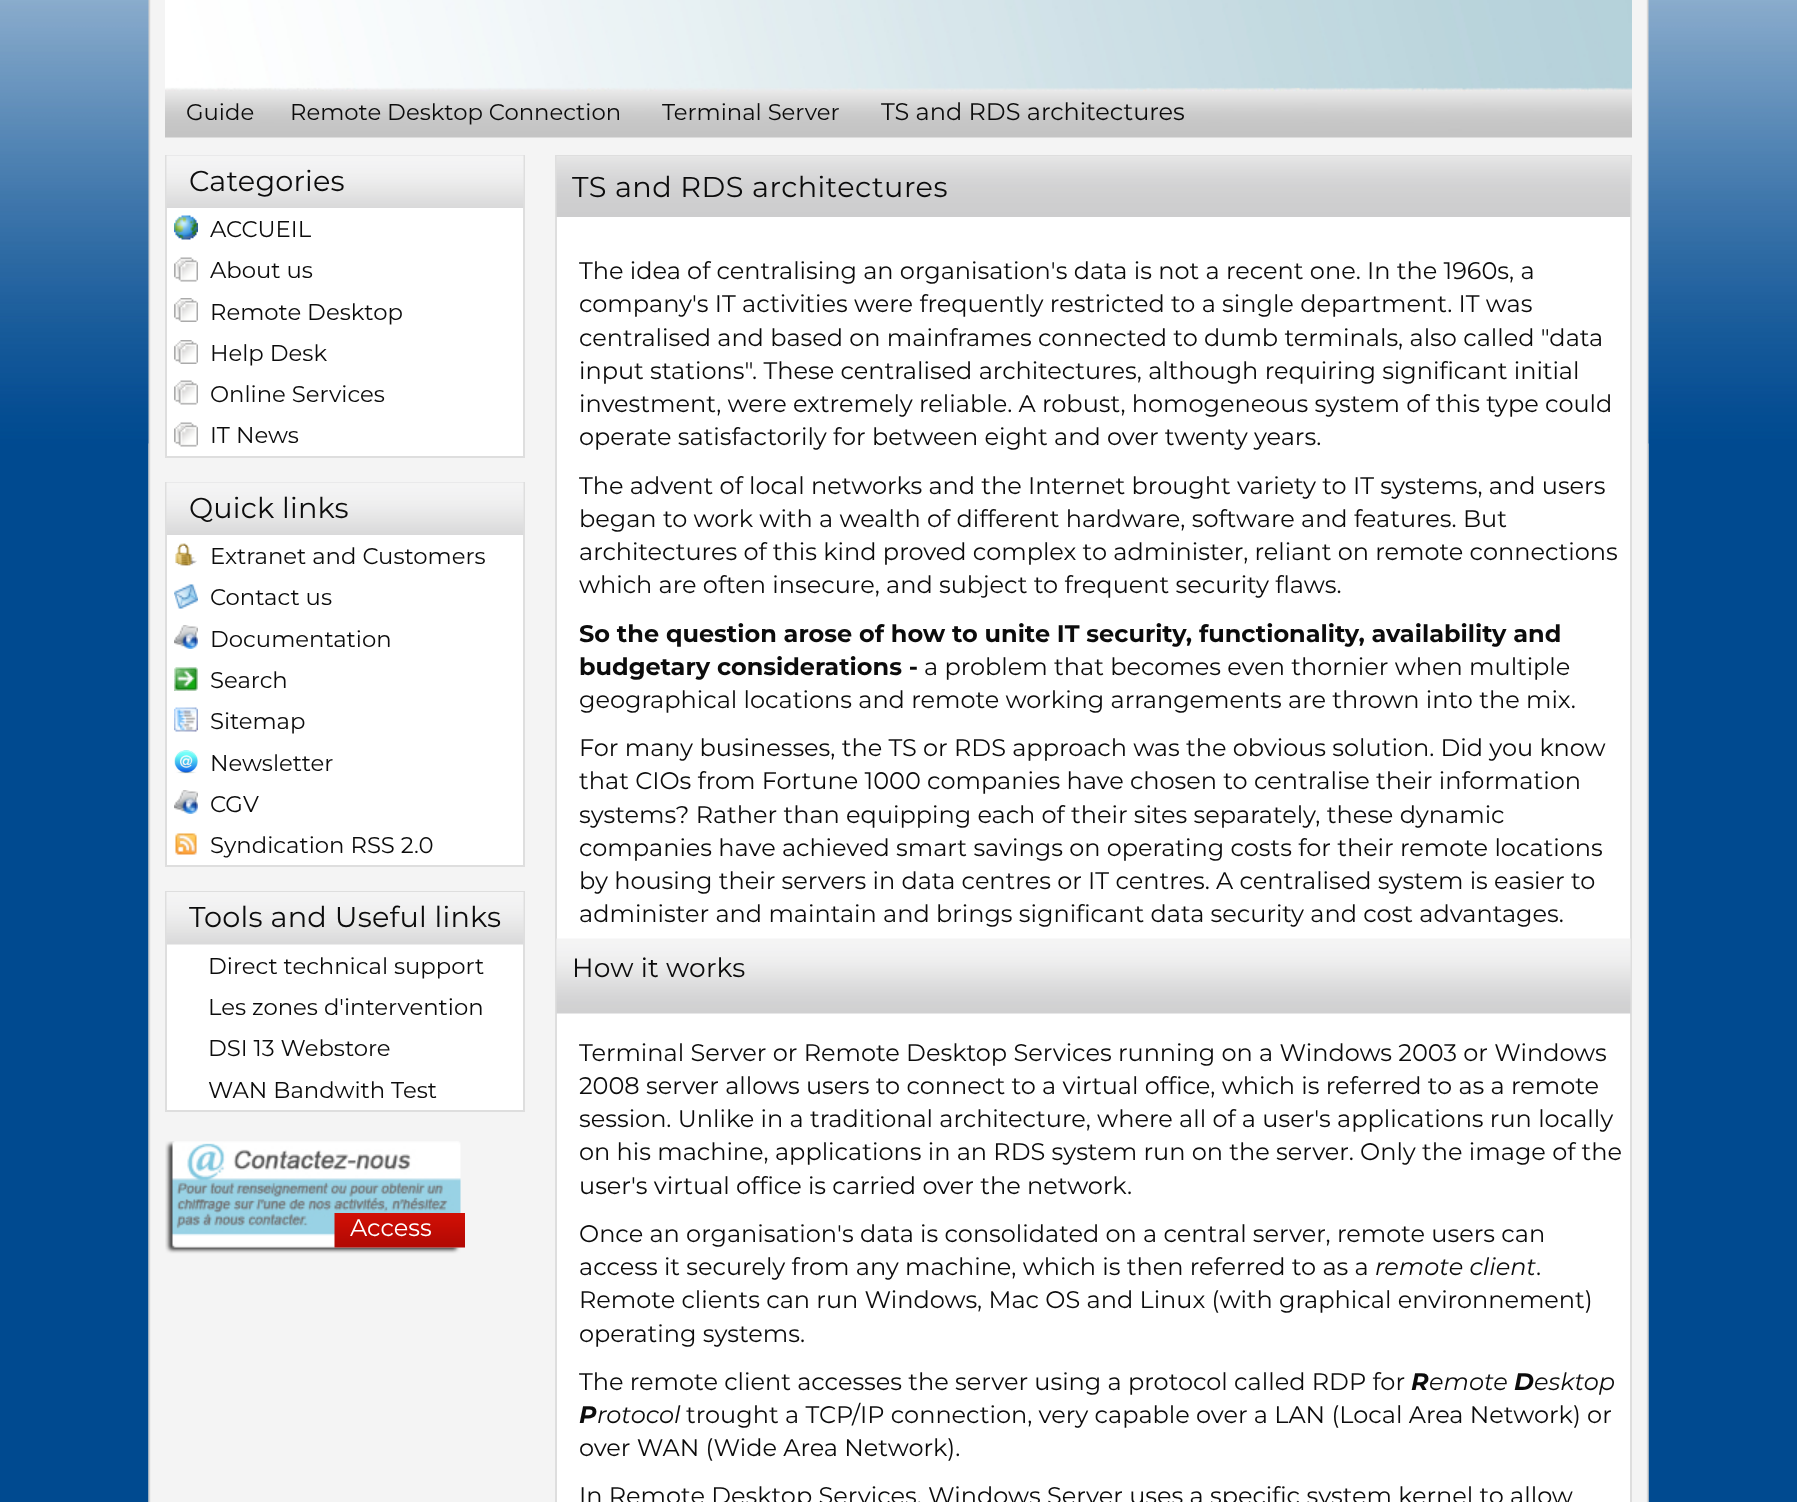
<svg xmlns="http://www.w3.org/2000/svg" width="1797" height="1502">
<rect width="100%" height="100%" fill="#004a90"/>
<image x="148" y="443" width="1501" height="1059" href="media/1.png"/>
<image x="0" y="0" width="1797" height="444" href="media/2.png"/>
<image x="148" y="0" width="1501" height="1502" href="media/3.png"/>
<image x="165" y="0" width="1467" height="138" href="media/4.png"/>
<text x="186" y="120" style="font-family:Montserrat;font-size:22.75px;fill:#0c0c0c">Guide</text>
<text x="290" y="120" style="font-family:Montserrat;font-size:22.75px;fill:#0c0c0c">Remote Desktop Connection</text>
<text x="662" y="120" style="font-family:Montserrat;font-size:22.75px;fill:#0c0c0c">Terminal Server</text>
<text x="881" y="120" style="font-family:Montserrat;font-size:24px;fill:#0c0c0c">TS and RDS architectures</text>
<rect x="167" y="208" width="356" height="248" fill="#fff"/>
<rect x="166" y="156" width="358" height="301" fill="none" stroke="#dedede" stroke-width="2"/>
<image x="166" y="155" width="358" height="53" href="media/5.png"/>
<text x="189" y="191" style="font-family:Montserrat;font-size:28.75px;letter-spacing:0.2px;fill:#0c0c0c">Categories</text>
<image x="174" y="215" width="24" height="25" href="media/6.png"/>
<text x="210" y="237" style="font-family:Montserrat;font-size:22.75px;fill:#0c0c0c">ACCUEIL</text>
<image x="174" y="257" width="24" height="25" href="media/7.png"/>
<text x="210" y="278" style="font-family:Montserrat;font-size:22.75px;fill:#0c0c0c">About us</text>
<image x="174" y="298" width="24" height="24" href="media/8.png"/>
<text x="210" y="320" style="font-family:Montserrat;font-size:22.75px;fill:#0c0c0c">Remote Desktop</text>
<image x="174" y="340" width="24" height="24" href="media/8.png"/>
<text x="210" y="361" style="font-family:Montserrat;font-size:22.75px;fill:#0c0c0c">Help Desk</text>
<image x="174" y="380" width="24" height="25" href="media/7.png"/>
<text x="210" y="402" style="font-family:Montserrat;font-size:22.75px;fill:#0c0c0c">Online Services</text>
<image x="174" y="422" width="24" height="25" href="media/7.png"/>
<text x="210" y="443" style="font-family:Montserrat;font-size:22.75px;fill:#0c0c0c">IT News</text>
<rect x="167" y="535" width="356" height="330" fill="#fff"/>
<rect x="166" y="483" width="358" height="383" fill="none" stroke="#dedede" stroke-width="2"/>
<image x="166" y="482" width="358" height="53" href="media/5.png"/>
<text x="189" y="518" style="font-family:Montserrat;font-size:28.75px;letter-spacing:0.2px;fill:#0c0c0c">Quick links</text>
<image x="175" y="543" width="22" height="23" href="media/9.png"/>
<text x="210" y="564" style="font-family:Montserrat;font-size:22.75px;fill:#0c0c0c">Extranet and Customers</text>
<image x="174" y="584" width="24" height="25" href="media/10.png"/>
<text x="210" y="605" style="font-family:Montserrat;font-size:22.75px;fill:#0c0c0c">Contact us</text>
<image x="174" y="625" width="24" height="24" href="media/11.png"/>
<text x="210" y="647" style="font-family:Montserrat;font-size:22.75px;fill:#0c0c0c">Documentation</text>
<image x="174" y="667" width="24" height="24" href="media/12.png"/>
<text x="210" y="688" style="font-family:Montserrat;font-size:22.75px;fill:#0c0c0c">Search</text>
<image x="174" y="707" width="24" height="25" href="media/13.png"/>
<text x="210" y="729" style="font-family:Montserrat;font-size:22.75px;fill:#0c0c0c">Sitemap</text>
<image x="174" y="750" width="24" height="24" href="media/14.png"/>
<text x="210" y="771" style="font-family:Montserrat;font-size:22.75px;fill:#0c0c0c">Newsletter</text>
<image x="174" y="790" width="24" height="24" href="media/11.png"/>
<text x="210" y="812" style="font-family:Montserrat;font-size:22.75px;fill:#0c0c0c">CGV</text>
<image x="175" y="833" width="22" height="22" href="media/15.png"/>
<text x="210" y="853" style="font-family:Montserrat;font-size:22.75px;fill:#0c0c0c">Syndication RSS 2.0</text>
<rect x="167" y="944" width="356" height="166" fill="#fff"/>
<rect x="166" y="892" width="358" height="219" fill="none" stroke="#dedede" stroke-width="2"/>
<image x="166" y="892" width="358" height="53" href="media/16.png"/>
<text x="189" y="927" style="font-family:Montserrat;font-size:28.75px;letter-spacing:0.2px;fill:#0c0c0c">Tools and Useful links</text>
<text x="208" y="974" style="font-family:Montserrat;font-size:22.75px;fill:#0c0c0c">Direct technical support</text>
<text x="208" y="1015" style="font-family:Montserrat;font-size:22.75px;fill:#0c0c0c">Les zones d'intervention</text>
<text x="208" y="1056" style="font-family:Montserrat;font-size:22.75px;fill:#0c0c0c">DSI 13 Webstore</text>
<text x="208" y="1098" style="font-family:Montserrat;font-size:22.75px;fill:#0c0c0c">WAN Bandwith Test</text>
<image x="165" y="1141" width="296" height="113" href="media/17.png"/>
<image x="334" y="1213" width="131" height="35" href="media/18.png"/>
<text x="350" y="1236" style="font-family:Montserrat;font-size:24px;fill:#fff">Access</text>
<rect x="557" y="217" width="1073" height="1285" fill="#fff"/>
<rect x="556" y="156" width="1075" height="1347" fill="none" stroke="#dedede" stroke-width="2"/>
<image x="556" y="156" width="1075" height="61" href="media/19.png"/>
<text x="572" y="197" style="font-family:Montserrat;font-size:28.75px;letter-spacing:0.5px;fill:#0c0c0c">TS and RDS architectures</text>
<text x="579" y="279" style="font-family:Montserrat;font-size:24px;fill:#0c0c0c">The idea of centralising an organisation's data is not a recent one. In the 1960s, a</text>
<text x="579" y="312" style="font-family:Montserrat;font-size:24px;fill:#0c0c0c">company's IT activities were frequently restricted to a single department. IT was</text>
<text x="579" y="346" style="font-family:Montserrat;font-size:24px;fill:#0c0c0c">centralised and based on mainframes connected to dumb terminals, also called "data</text>
<text x="579" y="379" style="font-family:Montserrat;font-size:24px;fill:#0c0c0c">input stations". These centralised architectures, although requiring significant initial</text>
<text x="579" y="412" style="font-family:Montserrat;font-size:24px;fill:#0c0c0c">investment, were extremely reliable. A robust, homogeneous system of this type could</text>
<text x="579" y="445" style="font-family:Montserrat;font-size:24px;fill:#0c0c0c">operate satisfactorily for between eight and over twenty years.</text>
<text x="579" y="494" style="font-family:Montserrat;font-size:24px;fill:#0c0c0c">The advent of local networks and the Internet brought variety to IT systems, and users</text>
<text x="579" y="527" style="font-family:Montserrat;font-size:24px;fill:#0c0c0c">began to work with a wealth of different hardware, software and features. But</text>
<text x="579" y="560" style="font-family:Montserrat;font-size:24px;fill:#0c0c0c">architectures of this kind proved complex to administer, reliant on remote connections</text>
<text x="579" y="593" style="font-family:Montserrat;font-size:24px;fill:#0c0c0c">which are often insecure, and subject to frequent security flaws.</text>
<text x="579" y="642" style="font-family:Montserrat;font-size:24px;font-weight:bold;fill:#0c0c0c">So the question arose of how to unite IT security, functionality, availability and</text>
<text x="579" y="675" style="font-family:Montserrat;font-size:24px;font-weight:bold;fill:#0c0c0c">budgetary considerations -</text>
<text x="924" y="675" style="font-family:Montserrat;font-size:24px;fill:#0c0c0c">a problem that becomes even thornier when multiple</text>
<text x="579" y="708" style="font-family:Montserrat;font-size:24px;fill:#0c0c0c">geographical locations and remote working arrangements are thrown into the mix.</text>
<text x="579" y="756" style="font-family:Montserrat;font-size:24px;fill:#0c0c0c">For many businesses, the TS or RDS approach was the obvious solution. Did you know</text>
<text x="579" y="789" style="font-family:Montserrat;font-size:24px;fill:#0c0c0c">that CIOs from Fortune 1000 companies have chosen to centralise their information</text>
<text x="579" y="823" style="font-family:Montserrat;font-size:24px;fill:#0c0c0c">systems? Rather than equipping each of their sites separately, these dynamic</text>
<text x="579" y="856" style="font-family:Montserrat;font-size:24px;fill:#0c0c0c">companies have achieved smart savings on operating costs for their remote locations</text>
<text x="579" y="889" style="font-family:Montserrat;font-size:24px;fill:#0c0c0c">by housing their servers in data centres or IT centres. A centralised system is easier to</text>
<text x="579" y="922" style="font-family:Montserrat;font-size:24px;fill:#0c0c0c">administer and maintain and brings significant data security and cost advantages.</text>
<image x="556" y="938" width="1075" height="76" href="media/20.png"/>
<text x="572" y="977" style="font-family:Montserrat;font-size:26.5px;letter-spacing:0.2px;fill:#0c0c0c">How it works</text>
<text x="579" y="1061" style="font-family:Montserrat;font-size:24px;fill:#0c0c0c">Terminal Server or Remote Desktop Services running on a Windows 2003 or Windows</text>
<text x="579" y="1094" style="font-family:Montserrat;font-size:24px;fill:#0c0c0c">2008 server allows users to connect to a virtual office, which is referred to as a remote</text>
<text x="579" y="1127" style="font-family:Montserrat;font-size:24px;fill:#0c0c0c">session. Unlike in a traditional architecture, where all of a user's applications run locally</text>
<text x="579" y="1160" style="font-family:Montserrat;font-size:24px;fill:#0c0c0c">on his machine, applications in an RDS system run on the server. Only the image of the</text>
<text x="579" y="1194" style="font-family:Montserrat;font-size:24px;fill:#0c0c0c">user's virtual office is carried over the network.</text>
<text x="579" y="1242" style="font-family:Montserrat;font-size:24px;fill:#0c0c0c">Once an organisation's data is consolidated on a central server, remote users can</text>
<text x="579" y="1275" style="font-family:Montserrat;font-size:24px;fill:#0c0c0c">access it securely from any machine, which is then referred to as a</text>
<text x="1375" y="1275" style="font-family:Montserrat;font-size:24px;font-style:italic;fill:#0c0c0c">remote client</text>
<text x="1536" y="1275" style="font-family:Montserrat;font-size:24px;fill:#0c0c0c">.</text>
<text x="579" y="1308" style="font-family:Montserrat;font-size:24px;fill:#0c0c0c">Remote clients can run Windows, Mac OS and Linux (with graphical environnement)</text>
<text x="579" y="1342" style="font-family:Montserrat;font-size:24px;fill:#0c0c0c">operating systems.</text>
<text x="579" y="1390" style="font-family:Montserrat;font-size:24px;fill:#0c0c0c">The remote client accesses the server using a protocol called RDP for</text>
<text x="1411" y="1390" style="font-family:Montserrat;font-size:24px;font-weight:bold;font-style:italic;fill:#0c0c0c">R</text>
<text x="1429" y="1390" style="font-family:Montserrat;font-size:24px;font-style:italic;fill:#0c0c0c">emote</text>
<text x="1514" y="1390" style="font-family:Montserrat;font-size:24px;font-weight:bold;font-style:italic;fill:#0c0c0c">D</text>
<text x="1534" y="1390" style="font-family:Montserrat;font-size:24px;font-style:italic;fill:#0c0c0c">esktop</text>
<text x="579" y="1423" style="font-family:Montserrat;font-size:24px;font-weight:bold;font-style:italic;fill:#0c0c0c">P</text>
<text x="597" y="1423" style="font-family:Montserrat;font-size:24px;font-style:italic;fill:#0c0c0c">rotocol</text>
<text x="686" y="1423" style="font-family:Montserrat;font-size:24px;fill:#0c0c0c">trought a TCP/IP connection, very capable over a LAN (Local Area Network) or</text>
<text x="579" y="1456" style="font-family:Montserrat;font-size:24px;fill:#0c0c0c">over WAN (Wide Area Network).</text>
<text x="579" y="1504" style="font-family:Montserrat;font-size:24px;fill:#0c0c0c">In Remote Desktop Services, Windows Server uses a specific system kernel to allow</text>
</svg>
